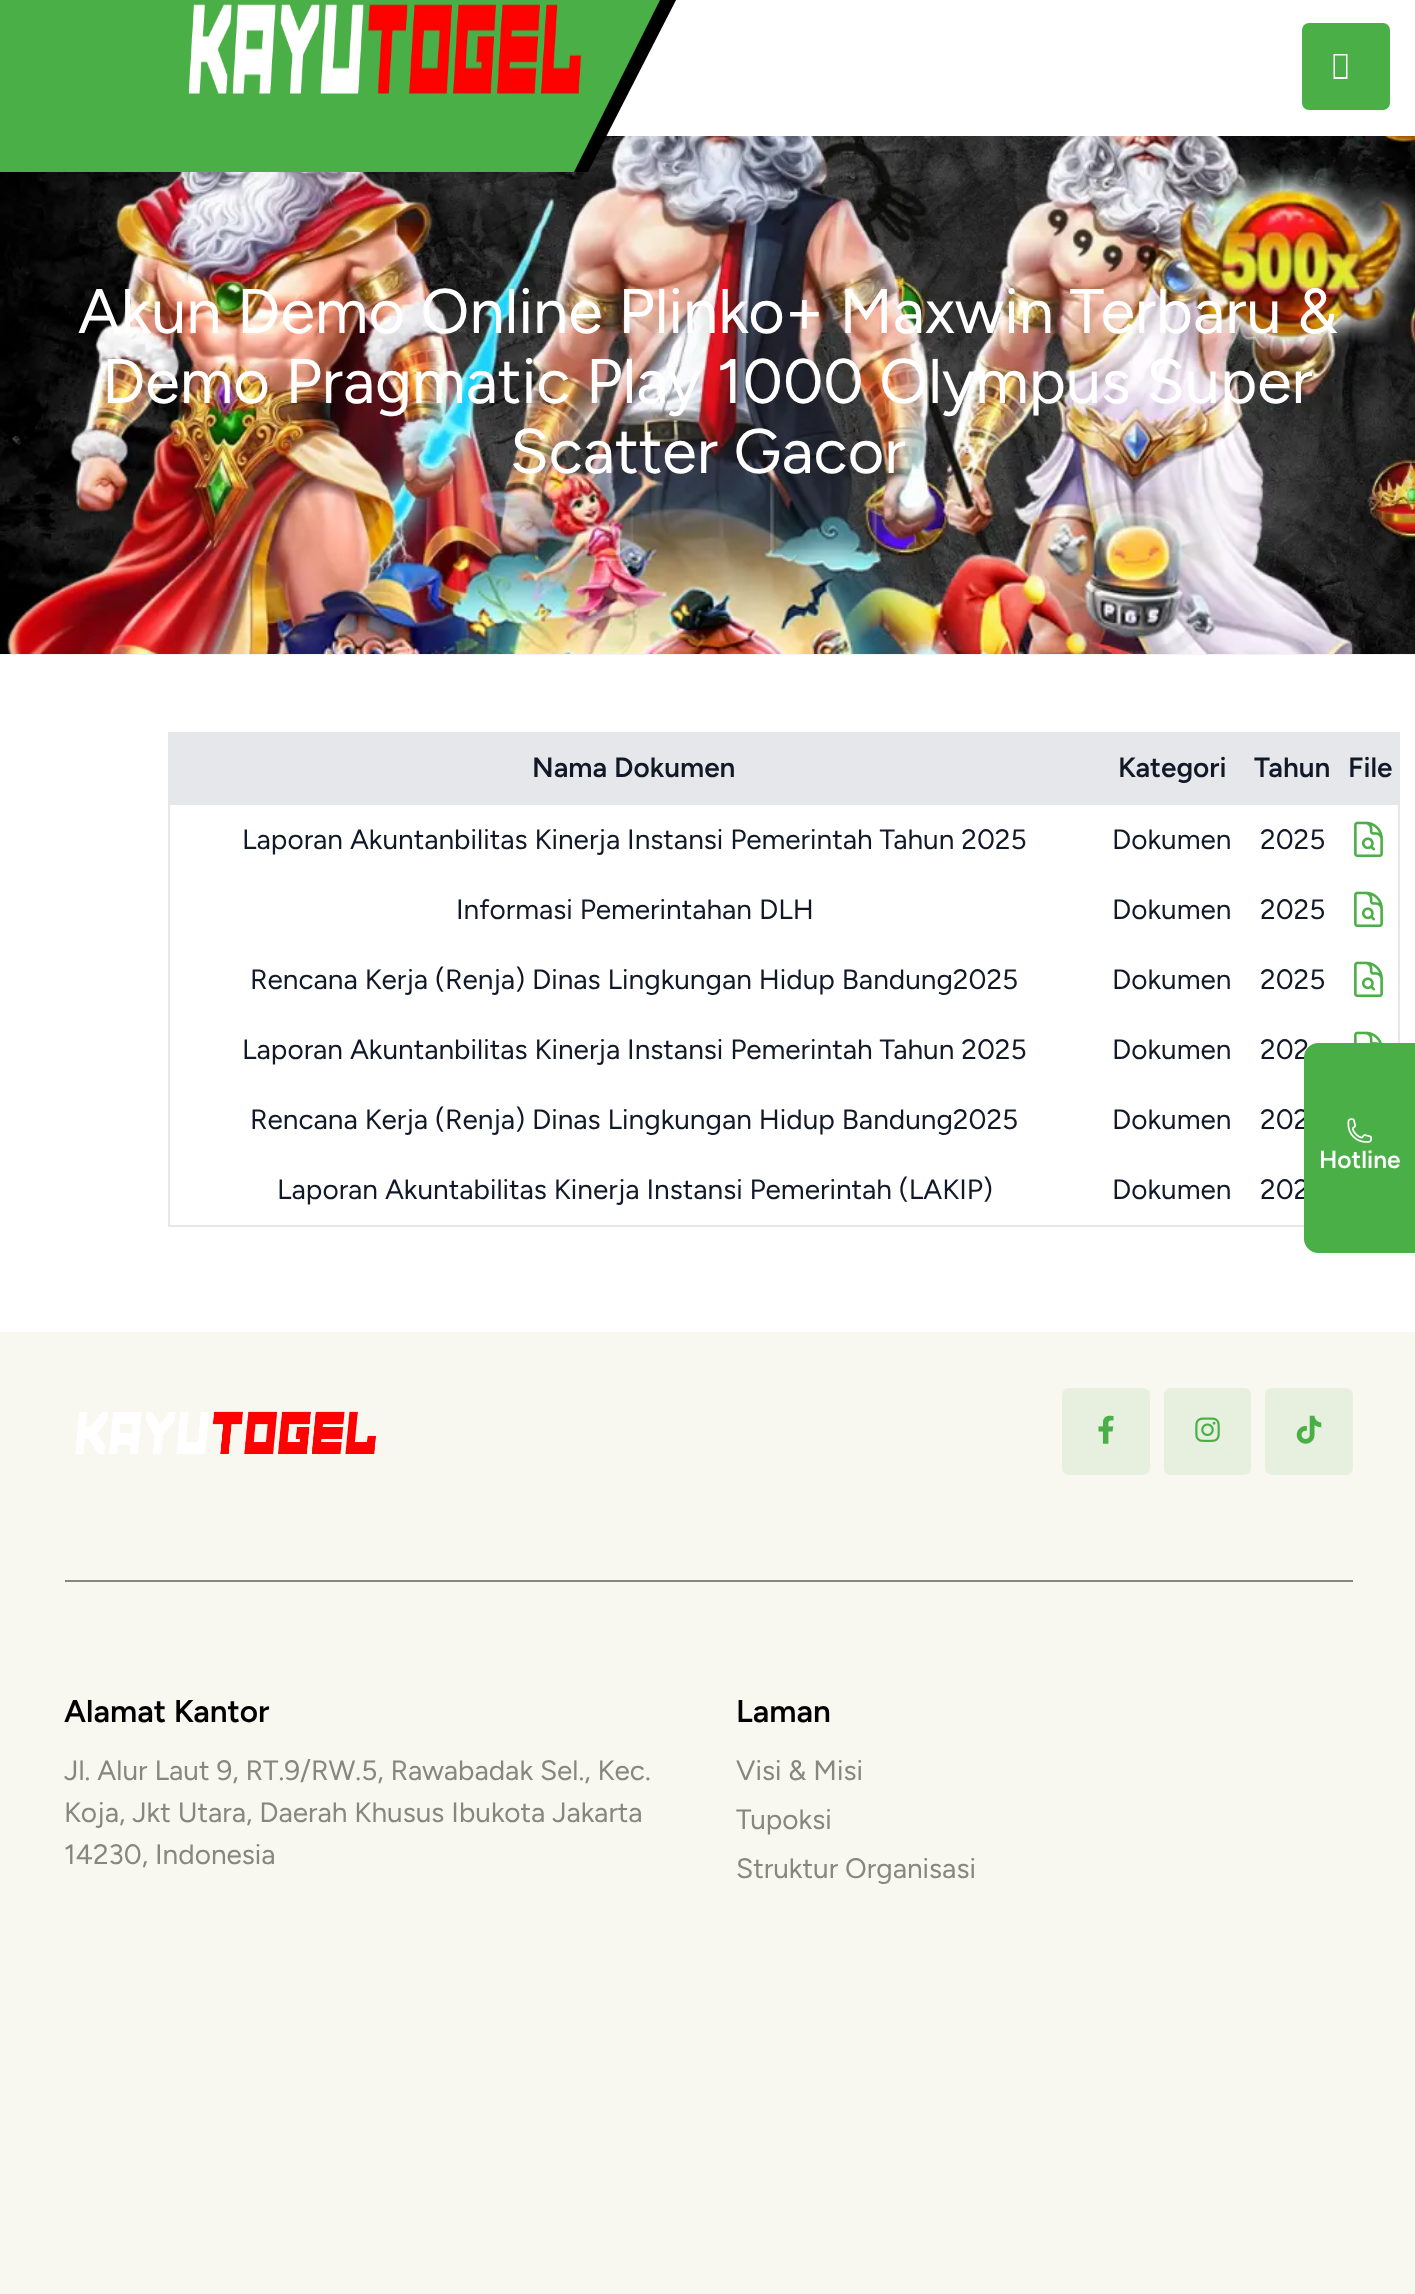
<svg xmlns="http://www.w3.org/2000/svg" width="1415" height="2294">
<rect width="100%" height="100%" fill="#f3f4f6"/>
<rect x="606" width="809" height="136" fill="#fff"/>
<image x="0" y="136" width="1415" height="518" href="media/2.png"/>
<path d="M0-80v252h588l129-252z" fill="#000"/>
<path d="M0-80v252h574l126-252z" fill="#4baf47"/>
<image x="188" y="4" width="394" height="90" href="media/1.png"/>
<rect x="1302" y="23" width="88" height="87" rx="7" fill="#4baf47"/>
<path d="M1333.5 79v-25h14v25zm1.5-2h11v-21.5h-11z" fill="#fff"/>
<text x="78" y="333" style="font-family:Figtree;font-size:63px;font-weight:300;fill:#fff">Akun Demo Online Plinko+ Maxwin Terbaru &amp;</text>
<text x="102" y="403" style="font-family:Figtree;font-size:63px;font-weight:300;fill:#fff">Demo Pragmatic Play 1000 Olympus Super</text>
<text x="510" y="473" style="font-family:Figtree;font-size:63px;font-weight:300;fill:#fff">Scatter Gacor</text>
<rect y="655" width="1415" height="677" fill="#fff"/>
<rect x="168" y="732" width="1232" height="2" fill="#e5e7eb"/>
<rect x="1398" y="732" width="2" height="311" fill="#e5e7eb"/>
<rect x="168" y="1225" width="1136" height="2" fill="#e5e7eb"/>
<rect x="168" y="732" width="2" height="495" fill="#e5e7eb"/>
<rect x="170" y="734" width="1228" height="71" fill="#e5e7eb"/>
<text x="532" y="777" style="font-family:Figtree;font-size:28px;font-weight:600;fill:#111827">Nama Dokumen</text>
<text x="1118" y="777" style="font-family:Figtree;font-size:28px;font-weight:600;fill:#111827">Kategori</text>
<text x="1254" y="777" style="font-family:Figtree;font-size:28px;font-weight:600;fill:#111827">Tahun</text>
<text x="1348" y="777" style="font-family:Figtree;font-size:28px;font-weight:600;fill:#111827">File</text>
<text x="242" y="849" style="font-family:Figtree;font-size:28px;font-weight:300;fill:#111827">Laporan Akuntanbilitas Kinerja Instansi Pemerintah Tahun 2025</text>
<text x="1112" y="849" style="font-family:Figtree;font-size:28px;font-weight:300;fill:#111827">Dokumen</text>
<text x="1260" y="849" style="font-family:Figtree;font-size:28px;font-weight:300;fill:#111827">2025</text>
<image x="1354" y="821" width="29" height="37" href="media/3.png"/>
<text x="456" y="919" style="font-family:Figtree;font-size:28px;font-weight:300;fill:#111827">Informasi Pemerintahan DLH</text>
<text x="1112" y="919" style="font-family:Figtree;font-size:28px;font-weight:300;fill:#111827">Dokumen</text>
<text x="1260" y="919" style="font-family:Figtree;font-size:28px;font-weight:300;fill:#111827">2025</text>
<image x="1354" y="891" width="29" height="37" href="media/3.png"/>
<text x="250" y="989" style="font-family:Figtree;font-size:28px;font-weight:300;fill:#111827">Rencana Kerja (Renja) Dinas Lingkungan Hidup Bandung2025</text>
<text x="1112" y="989" style="font-family:Figtree;font-size:28px;font-weight:300;fill:#111827">Dokumen</text>
<text x="1260" y="989" style="font-family:Figtree;font-size:28px;font-weight:300;fill:#111827">2025</text>
<image x="1354" y="961" width="29" height="37" href="media/3.png"/>
<text x="242" y="1059" style="font-family:Figtree;font-size:28px;font-weight:300;fill:#111827">Laporan Akuntanbilitas Kinerja Instansi Pemerintah Tahun 2025</text>
<text x="1112" y="1059" style="font-family:Figtree;font-size:28px;font-weight:300;fill:#111827">Dokumen</text>
<text x="1260" y="1059" style="font-family:Figtree;font-size:28px;font-weight:300;fill:#111827">202</text>
<image x="1354" y="1031" width="28" height="12" href="media/4.png"/>
<text x="250" y="1129" style="font-family:Figtree;font-size:28px;font-weight:300;fill:#111827">Rencana Kerja (Renja) Dinas Lingkungan Hidup Bandung2025</text>
<text x="1112" y="1129" style="font-family:Figtree;font-size:28px;font-weight:300;fill:#111827">Dokumen</text>
<text x="1260" y="1129" style="font-family:Figtree;font-size:28px;font-weight:300;fill:#111827">202</text>
<text x="277" y="1199" style="font-family:Figtree;font-size:28px;font-weight:300;fill:#111827">Laporan Akuntabilitas Kinerja Instansi Pemerintah (LAKIP)</text>
<text x="1112" y="1199" style="font-family:Figtree;font-size:28px;font-weight:300;fill:#111827">Dokumen</text>
<text x="1260" y="1199" style="font-family:Figtree;font-size:28px;font-weight:300;fill:#111827">202</text>
<path d="M1318 1043h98v210h-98c-7.5 0-14-6.5-14-14v-182c0-7.5 6.5-14 14-14z" fill="#4baf47"/>
<image x="1347" y="1118" width="25" height="25" href="media/5.png"/>
<text x="1319" y="1168" style="font-family:Figtree;font-size:24.5px;font-weight:600;fill:#fff">Hotline</text>
<rect y="1332" width="1415" height="962" fill="#f8f7f0"/>
<rect x="65" y="1580" width="1288" height="2" fill="#878680"/>
<image x="75" y="1411" width="301" height="43" href="media/6.png"/>
<rect x="1062" y="1388" width="88" height="87" rx="7" fill="#e7f0df"/>
<image x="1098" y="1415" width="16" height="29" href="media/7.png"/>
<rect x="1164" y="1388" width="87" height="87" rx="7" fill="#e7f0df"/>
<image x="1195" y="1417" width="25" height="25" href="media/8.png"/>
<rect x="1265" y="1388" width="88" height="87" rx="7" fill="#e7f0df"/>
<image x="1296" y="1415" width="26" height="29" href="media/9.png"/>
<text x="64" y="1722" style="font-family:Figtree;font-size:31.5px;font-weight:600;fill:#000">Alamat Kantor</text>
<text x="64" y="1780" style="font-family:Figtree;font-size:28px;font-weight:300;fill:#878680">Jl. Alur Laut 9, RT.9/RW.5, Rawabadak Sel., Kec.</text>
<text x="64" y="1822" style="font-family:Figtree;font-size:28px;font-weight:300;fill:#878680">Koja, Jkt Utara, Daerah Khusus Ibukota Jakarta</text>
<text x="64" y="1864" style="font-family:Figtree;font-size:28px;font-weight:300;fill:#878680">14230, Indonesia</text>
<text x="736" y="1722" style="font-family:Figtree;font-size:31.5px;font-weight:600;fill:#000">Laman</text>
<text x="736" y="1780" style="font-family:Figtree;font-size:28px;font-weight:300;fill:#878680">Visi &amp; Misi</text>
<text x="736" y="1829" style="font-family:Figtree;font-size:28px;font-weight:300;fill:#878680">Tupoksi</text>
<text x="736" y="1878" style="font-family:Figtree;font-size:28px;font-weight:300;fill:#878680">Struktur Organisasi</text>
</svg>
